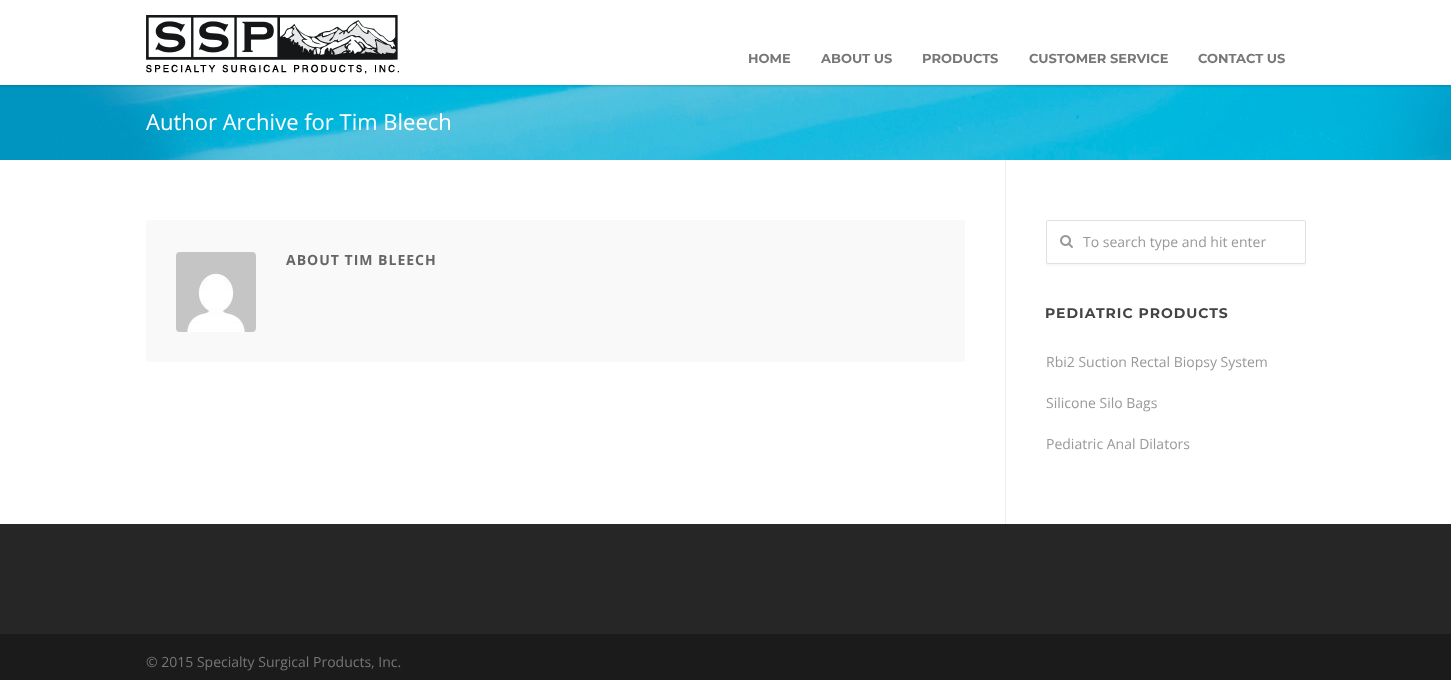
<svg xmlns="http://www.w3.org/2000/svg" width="1451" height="680">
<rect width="100%" height="100%" fill="#fff"/>
<image x="0" y="85" width="1451" height="75" href="media/2.png"/>
<rect x="-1" y="-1" width="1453" height="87" fill="#00000029" filter="blur(1px)"/>
<rect width="1451" height="85" fill="#fff"/>
<image x="146" y="15" width="253" height="59" href="media/1.png"/>
<text x="748" y="63" style="font-family:Montserrat;font-size:13px;font-weight:bold;fill:#777">HOME</text>
<text x="821" y="63" style="font-family:Montserrat;font-size:13px;font-weight:bold;fill:#777">ABOUT US</text>
<text x="922" y="63" style="font-family:Montserrat;font-size:13px;font-weight:bold;fill:#777">PRODUCTS</text>
<text x="1029" y="63" style="font-family:Montserrat;font-size:13px;font-weight:bold;fill:#777">CUSTOMER SERVICE</text>
<text x="1198" y="63" style="font-family:Montserrat;font-size:13px;font-weight:bold;fill:#777">CONTACT US</text>
<text x="146" y="130" style="font-family:Open Sans;font-size:22px;fill:#fff">Author Archive for Tim Bleech</text>
<rect x="146" y="220" width="819" height="142" rx="2" fill="#f9f9f9"/>
<image x="176" y="252" width="80" height="80" href="media/3.png"/>
<text x="286" y="265" style="font-family:Open Sans;font-size:14px;font-weight:bold;letter-spacing:1px;fill:#666">ABOUT TIM BLEECH</text>
<rect x="1005" y="160" width="1" height="364" fill="#efefef"/>
<path d="M1046 262v2c0 1 1 2 2 2h256c1 0 2-1 2-2v-2c0 1-1 2-2 2h-256c-1 0-2-1-2-2z" fill="#f7f7f7"/>
<rect x="1046.5" y="220.5" width="259" height="43" rx="1.5" fill="none" stroke="#e1e1e1"/>
<image x="1060" y="235" width="13" height="13" href="media/4.png"/>
<text x="1083" y="247" style="font-family:Open Sans;font-size:14px;fill:#999">To search type and hit enter</text>
<text x="1045" y="318" style="font-family:Montserrat;font-size:14px;font-weight:bold;letter-spacing:1px;fill:#444">PEDIATRIC PRODUCTS</text>
<text x="1046" y="367" style="font-family:Open Sans;font-size:14px;fill:#999">Rbi2 Suction Rectal Biopsy System</text>
<text x="1046" y="408" style="font-family:Open Sans;font-size:14px;fill:#999">Silicone Silo Bags</text>
<text x="1046" y="449" style="font-family:Open Sans;font-size:14px;fill:#999">Pediatric Anal Dilators</text>
<rect y="524" width="1451" height="110" fill="#262626"/>
<rect y="634" width="1451" height="46" fill="#1b1b1b"/>
<text x="146" y="667" style="font-family:Open Sans;font-size:14px;fill:#777">© 2015 Specialty Surgical Products, Inc.</text>
</svg>
